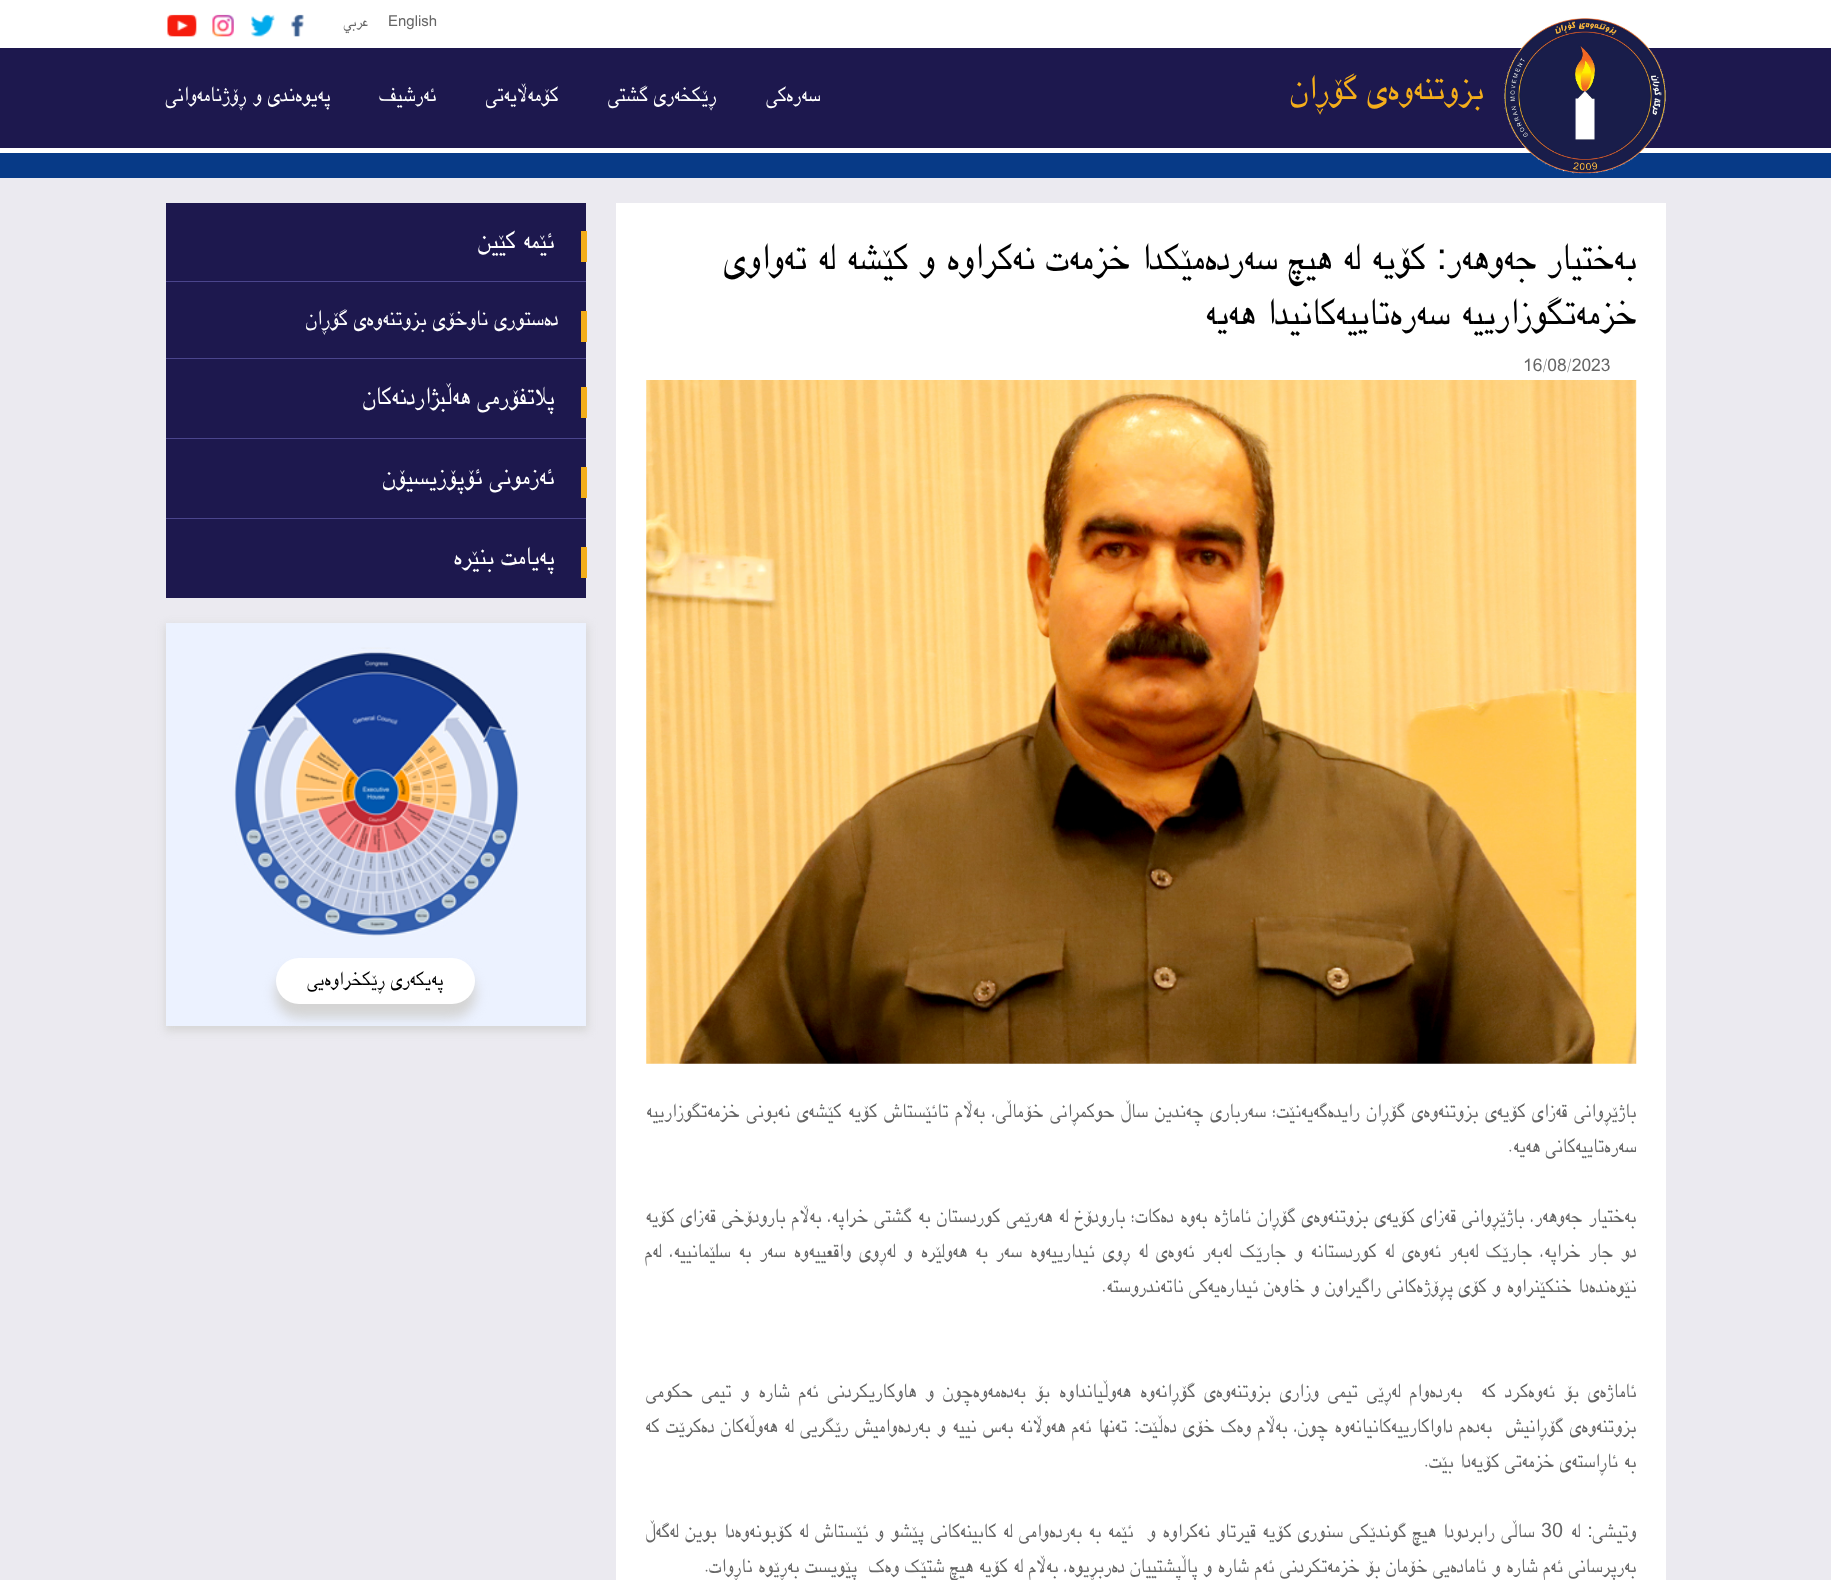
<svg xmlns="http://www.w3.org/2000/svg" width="1831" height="1580">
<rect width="100%" height="100%" fill="#ebeaf0"/>
<rect width="1831" height="153" fill="#fff"/>
<text x="388" y="26" style="font-family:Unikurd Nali;font-size:15px;fill:#666">English</text>
<text x="368" y="26" style="font-family:Unikurd Nali;font-size:15px;direction:rtl;fill:#666">عربي</text>
<image x="291" y="14" width="13" height="23" href="media/1.png"/>
<image x="251" y="14" width="24" height="23" href="media/2.png"/>
<image x="212" y="14" width="22" height="23" href="media/3.png"/>
<image x="167" y="14" width="30" height="23" href="media/4.png"/>
<rect y="48" width="1831" height="100" fill="#1d184e"/>
<rect y="153" width="1831" height="25" fill="#073a87"/>
<image x="1504" y="18" width="162" height="156" href="media/5.png"/>
<text x="1483" y="99" style="font-family:Unikurd Nali;font-size:35px;direction:rtl;fill:#f4ae1b">بزوتنەوەی گۆڕان</text>
<text x="820" y="101" style="font-family:Unikurd Nali;font-size:21.25px;direction:rtl;fill:#fff">سەرەکی</text>
<text x="716" y="101" style="font-family:Unikurd Nali;font-size:21.25px;direction:rtl;fill:#fff">ڕێکخەری گشتی</text>
<text x="558" y="101" style="font-family:Unikurd Nali;font-size:21.25px;direction:rtl;fill:#fff">کۆمەڵایەتی</text>
<text x="436" y="101" style="font-family:Unikurd Nali;font-size:21.25px;direction:rtl;fill:#fff">ئەرشیف</text>
<text x="330" y="101" style="font-family:Unikurd Nali;font-size:21.25px;direction:rtl;fill:#fff">پەیوەندی و ڕۆژنامەوانی</text>
<rect x="616" y="203" width="1050" height="1377" fill="#fff"/>
<text x="1636" y="269" style="font-family:Unikurd Nali;font-size:37.5px;direction:rtl;fill:#000">بەختیار جەوهەر: کۆیە لە هیچ سەردەمێکدا خزمەت نەکراوە و کێشە لە تەواوى</text>
<text x="1636" y="324" style="font-family:Unikurd Nali;font-size:37.5px;direction:rtl;fill:#000">خزمەتگوزارییە سەرەتاییەکانیدا هەیە</text>
<text x="1523" y="371" style="font-family:Unikurd Nali;font-size:17.5px;fill:#666">16/08/2023</text>
<image x="646" y="380" width="991" height="684" href="media/6.png"/>
<text x="1636" y="1117" word-spacing="1.25" style="font-family:Unikurd Nali;font-size:20px;direction:rtl;fill:#666">باژێڕوانى قەزاى کۆیەى بزوتنەوەى گۆڕان رایدەگەیەنێت؛ سەربارى چەندین ساڵ حوکمڕانى خۆماڵى، بەڵام تائێستاش کۆیە کێشەى نەبونى خزمەتگوزارییە</text>
<text x="1636" y="1152" style="font-family:Unikurd Nali;font-size:20px;direction:rtl;fill:#666">سەرەتاییەکانى هەیە.</text>
<text x="1636" y="1222" word-spacing="0.6" style="font-family:Unikurd Nali;font-size:20px;direction:rtl;fill:#666">بەختیار جەوهەر، باژێڕوانى قەزاى کۆیەى بزوتنەوەى گۆڕان ئاماژە بەوە دەکات؛ بارودۆخ لە هەرێمى کوردستان بە گشتى خراپە، بەڵام بارودۆخى قەزاى کۆیە</text>
<text x="1636" y="1257" word-spacing="2.4" style="font-family:Unikurd Nali;font-size:20px;direction:rtl;fill:#666">دو جار خراپە، جارێک لەبەر ئەوەى لە کوردستانە و جارێک لەبەر ئەوەى لە ڕوى ئیدارییەوە سەر بە هەولێرە و لەڕوى واقعییەوە سەر بە سلێمانییە، لەم</text>
<text x="1636" y="1292" style="font-family:Unikurd Nali;font-size:20px;direction:rtl;fill:#666">نێوەندەدا خنکێنراوە و کۆى پڕۆژەکانى راگیراون و خاوەن ئیدارەیەکى ناتەندروستە.</text>
<text x="1636" y="1397" word-spacing="3.4" style="font-family:Unikurd Nali;font-size:20px;direction:rtl;fill:#666" xml:space="preserve">ئاماژەى بۆ ئەوەکرد کە  بەردەوام لەڕێى تیمى وزارى بزوتنەوەى گۆڕانەوە هەوڵیانداوە بۆ بەدەمەوەچون و هاوکاریکردنى ئەم شارە و تیمى حکومى</text>
<text x="1636" y="1432" word-spacing="0.9" style="font-family:Unikurd Nali;font-size:20px;direction:rtl;fill:#666" xml:space="preserve">بزوتنەوەى گۆڕانیش  بەدەم داواکارییەکانیانەوە چون، بەڵام وەک خۆى دەڵێت: تەنها ئەم هەوڵانە بەس نییە و بەردەوامیش رێگریی لە هەوڵەکان دەکرێت کە</text>
<text x="1636" y="1467" style="font-family:Unikurd Nali;font-size:20px;direction:rtl;fill:#666">بە ئاڕاستەى خزمەتى کۆیەدا بێت.</text>
<text x="1636" y="1537" word-spacing="0.9" style="font-family:Unikurd Nali;font-size:20px;direction:rtl;fill:#666">وتیشى: لە</text>
<text x="1541" y="1537" style="font-family:Unikurd Nali;font-size:20px;fill:#666">30</text>
<text x="1534" y="1537" word-spacing="0.9" style="font-family:Unikurd Nali;font-size:20px;direction:rtl;fill:#666" xml:space="preserve">ساڵى رابردودا هیچ گوندێکى سنورى کۆیە قیرتاو نەکراوە و  ئێمە بە بەردەوامى لە کابینەکانى پێشو و ئێستاش لە کۆبونەوەدا بوین لەگەڵ</text>
<text x="1636" y="1572" style="font-family:Unikurd Nali;font-size:20px;direction:rtl;fill:#666" xml:space="preserve">بەرپرسانى ئەم شارە و ئامادەیی خۆمان بۆ خزمەتکردنى ئەم شارە و پاڵپشتییان دەربڕیوە، بەڵام لە کۆیە هیچ شتێک وەک  پێویست بەڕێوە ناڕوات.</text>
<rect x="166" y="203" width="420" height="395" fill="#1d184e"/>
<rect x="581" y="231" width="6" height="31" fill="#f4ae1b"/>
<rect x="166" y="281" width="420" height="1" fill="#4b458d"/>
<text x="554" y="248" style="font-family:Unikurd Nali;font-size:25px;direction:rtl;fill:#fff">ئێمە کێین</text>
<rect x="581" y="311" width="6" height="31" fill="#f4ae1b"/>
<rect x="166" y="358" width="420" height="1" fill="#4b458d"/>
<text x="558" y="325" style="font-family:Unikurd Nali;font-size:21.9px;direction:rtl;fill:#fff">ده‌ستوری ناوخۆی بزوتنه‌وه‌ی گۆڕان</text>
<rect x="581" y="387" width="6" height="31" fill="#f4ae1b"/>
<rect x="166" y="438" width="420" height="1" fill="#4b458d"/>
<text x="554" y="404" style="font-family:Unikurd Nali;font-size:25px;direction:rtl;fill:#fff">پلاتفۆرمی هەڵبژاردنەکان</text>
<rect x="581" y="467" width="6" height="31" fill="#f4ae1b"/>
<rect x="166" y="518" width="420" height="1" fill="#4b458d"/>
<text x="554" y="484" style="font-family:Unikurd Nali;font-size:25px;direction:rtl;fill:#fff">ئه‌زمونی ئۆپۆزیسیۆن</text>
<rect x="581" y="547" width="6" height="31" fill="#f4ae1b"/>
<text x="554" y="564" style="font-family:Unikurd Nali;font-size:25px;direction:rtl;fill:#fff">پەیامت بنێرە</text>
<rect x="165" y="625" width="423" height="406" fill="#d6d6d6" filter="blur(4.5px)"/>
<rect x="166" y="623" width="420" height="403" fill="#ecf2ff"/>
<image x="234" y="647" width="286" height="289" href="media/7.png"/>
<rect x="275" y="969" width="201" height="49" rx="24.5" fill="#d4d4d4" filter="blur(6px)"/>
<rect x="276" y="958" width="199" height="46" rx="23" fill="#fff"/>
<text x="443" y="985" style="font-family:Unikurd Nali;font-size:20px;direction:rtl;fill:#000">پەیکەری ڕێکخراوەیی</text>
</svg>
